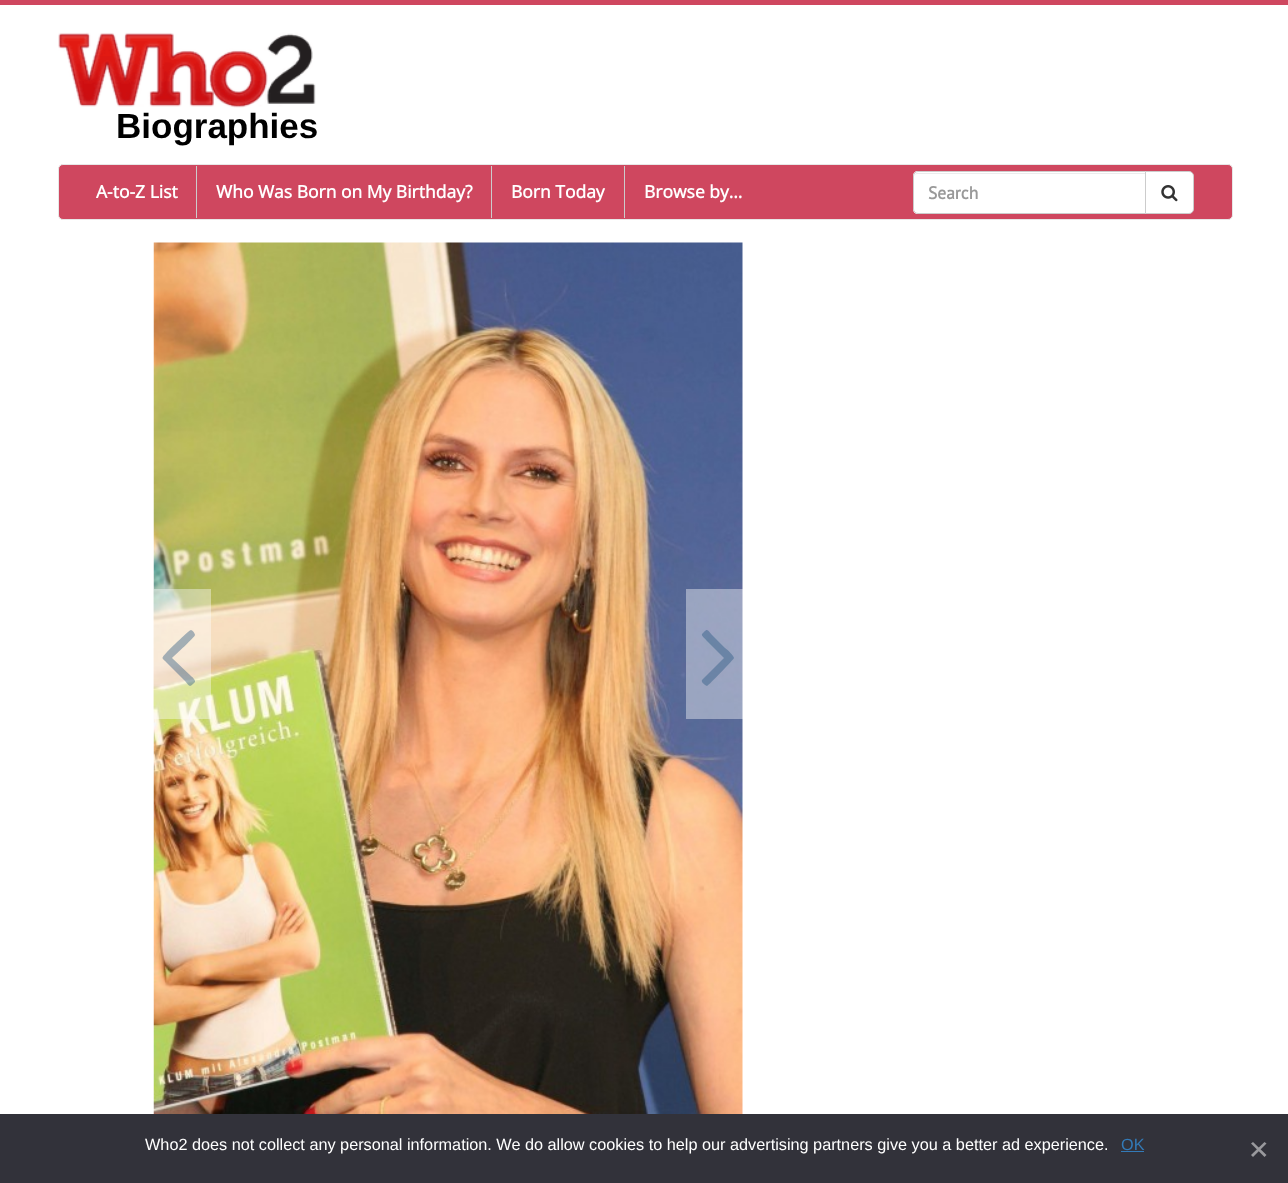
<svg xmlns="http://www.w3.org/2000/svg" width="1288" height="1183">
<rect width="100%" height="100%" fill="#fff"/>
<rect width="1288" height="5" fill="#cf475f"/>
<image x="58" y="32" width="258" height="76" href="media/1.png"/>
<text x="116" y="138" style="font-family:Liberation Sans;font-size:35px;font-weight:bold;fill:#000">Biographies</text>
<rect x="58.5" y="164.5" width="1174" height="55" rx="4.5" fill="#cf475f" stroke="#e7e7e7"/>
<rect x="196" y="166" width="1" height="52" fill="#ccc"/>
<text x="96" y="198" style="font-family:Open Sans;font-size:17.5px;font-weight:bold;fill:#fff">A-to-Z List</text>
<rect x="491" y="166" width="1" height="52" fill="#ccc"/>
<text x="216" y="198" style="font-family:Open Sans;font-size:17.5px;font-weight:bold;fill:#fff">Who Was Born on My Birthday?</text>
<rect x="624" y="166" width="1" height="52" fill="#ccc"/>
<text x="511" y="198" style="font-family:Open Sans;font-size:17.5px;font-weight:bold;fill:#fff">Born Today</text>
<text x="644" y="198" style="font-family:Open Sans;font-size:17.5px;font-weight:bold;fill:#fff">Browse by…</text>
<path d="M918 171h228v43h-228c-3 0-5-2-5-5v-33c0-3 2-5 5-5z" fill="#fff"/>
<path d="M918 174h227v-1h-227c-3 0-4 2-4 5c0-3 1-4 4-4z" fill="#ececec"/>
<path d="M918 171.5h227.5v42h-227.5c-2.5 0-4.5-2-4.5-4.5v-33c0-2.5 2-4.5 4.5-4.5z" fill="none" stroke="#ccc"/>
<text x="928" y="199" style="font-family:PT Sans;font-size:17.5px;font-weight:bold;fill:#999">Search</text>
<path d="M1145.5 171.5h43.5c2.5 0 4.5 2 4.5 4.5v33c0 2.5-2 4.5-4.5 4.5h-43.5z" fill="#fff" stroke="#ccc"/>
<image x="1161" y="185" width="17" height="17" href="media/2.png"/>
<image x="153" y="242" width="590" height="872" href="media/3.png"/>
<rect x="154" y="589" width="57" height="130" fill="#ffffff66"/>
<path d="M195 635c0-2-3-5-4-5c-2 0-21 19-24 22c-6 7-6 5 0 11l18 18c4 4 4 7 8 3l2-2c1-2-4-6-4-6l-19-18c3-3 23-21 23-23z" fill="#23527c66"/>
<rect x="686" y="589" width="57" height="130" fill="#ffffff66"/>
<path d="M734 658c0-2-7-9-9-10l-13-13c-4-4-4-7-8-3l-2 2c-1 2 4 5 4 6l18 18l-22 22c-1 2 2 4 3 5l2 1c2-1 27-27 27-28z" fill="#23527c66"/>
<rect y="1114" width="1288" height="69" fill="#32323a"/>
<text x="145" y="1150" style="font-family:Liberation Sans;font-size:16.25px;fill:#fff">Who2 does not collect any personal information. We do allow cookies to help our advertising partners give you a better ad experience.</text>
<text x="1121" y="1150" style="font-family:Liberation Sans;font-size:16.25px;fill:#337ab7">OK</text>
<rect x="1121" y="1151" width="23" height="1" fill="#337ab7"/>
<path d="M1264.5 1142l2 1.5l-13.5 13.5l-2-2z" fill="#99999d"/>
<path d="M1251 1143.5l2-1.5l13.5 13l-2 2z" fill="#99999d"/>
</svg>
